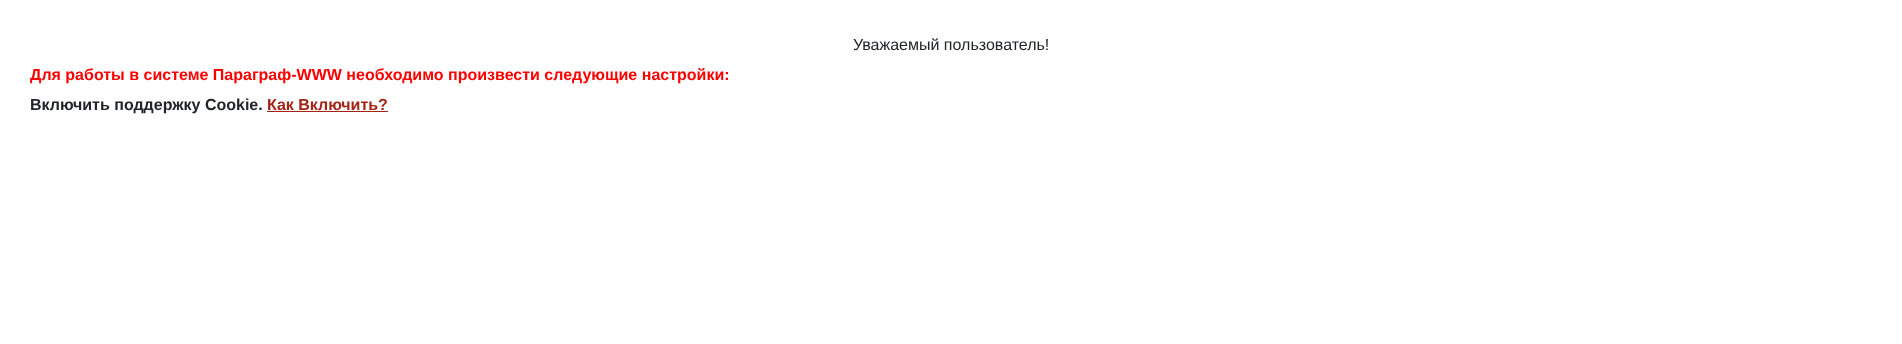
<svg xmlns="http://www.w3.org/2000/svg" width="1902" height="344">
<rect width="100%" height="100%" fill="#fff"/>
<text x="853" y="50" style="font-family:Liberation Sans;font-size:16px;fill:#212529">Уважаемый пользователь!</text>
<text x="30" y="80" style="font-family:Liberation Sans;font-size:16px;font-weight:bold;fill:#f00">Для работы в системе Параграф-WWW необходимо произвести следующие настройки:</text>
<text x="30" y="110" style="font-family:Liberation Sans;font-size:16px;font-weight:bold;fill:#212529">Включить поддержку Cookie.</text>
<text x="267" y="110" style="font-family:Liberation Sans;font-size:16px;font-weight:bold;fill:#a52315">Как Включить?</text>
<rect x="267" y="111" width="121" height="1" fill="#a52315"/>
</svg>
